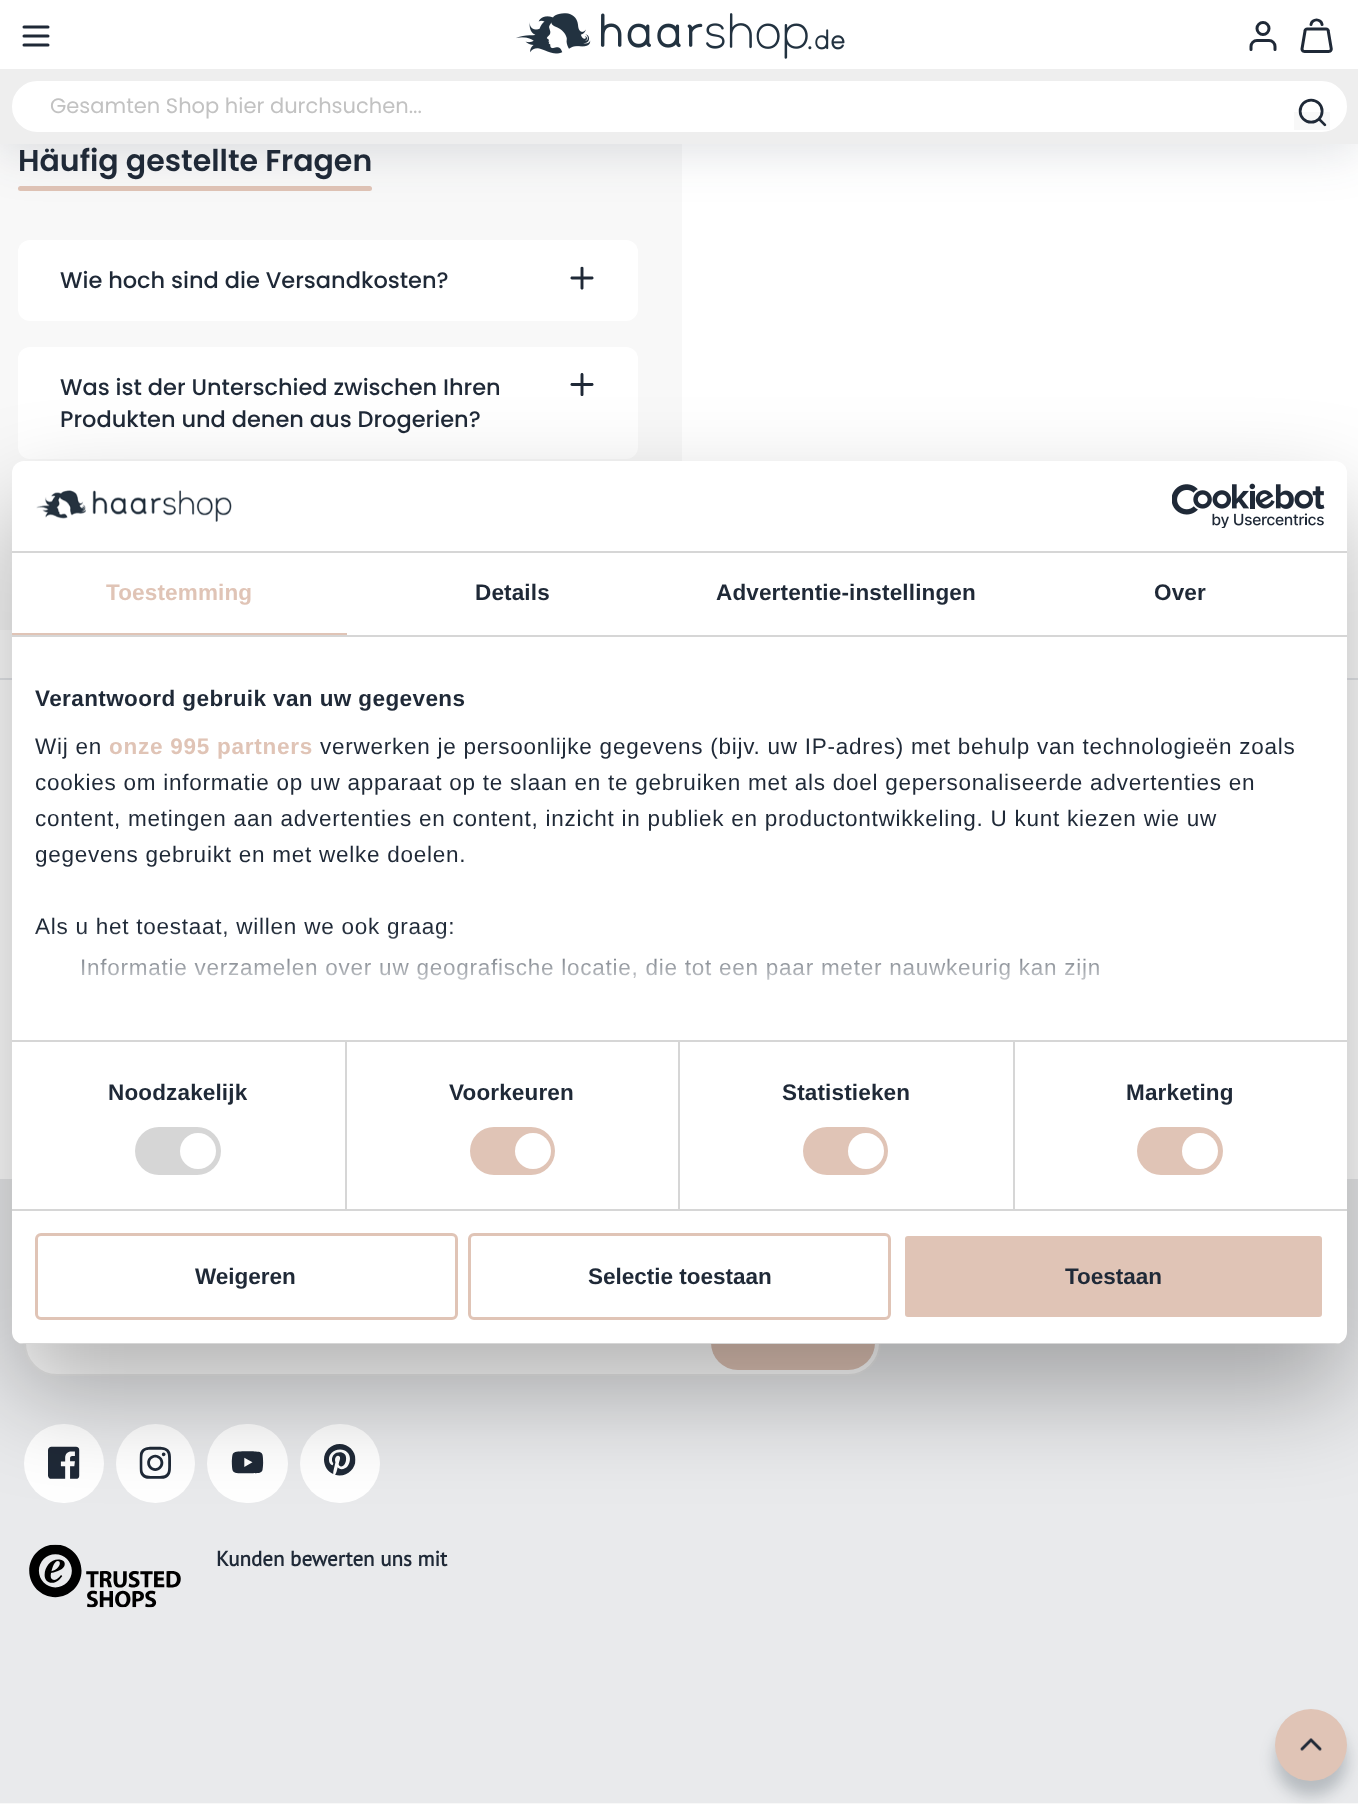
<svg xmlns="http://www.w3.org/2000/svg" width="1358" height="1804">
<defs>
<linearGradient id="g1" gradientUnits="userSpaceOnUse" x1="670" y1="1040" x2="670" y2="928"><stop offset="0" stop-color="#fff"/><stop offset="0.5" stop-color="#fff" stop-opacity="0.8"/><stop offset="1" stop-color="#fff" stop-opacity="0"/></linearGradient>
<clipPath id="clip1"><rect x="12" y="461" width="1335" height="883" rx="12"/></clipPath>
</defs>
<rect width="100%" height="100%" fill="#fff"/>
<rect y="144" width="682" height="486" fill="#f8f8f8"/>
<rect x="18" y="186" width="354" height="5" rx="2.5" fill="#e0c4b6"/>
<rect y="6" width="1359" height="144" fill="#22324026" filter="blur(25.5px)"/>
<rect width="1358" height="69" fill="#fff"/>
<path d="M24 27h24m-24 9h24m-24 9h24" fill="none" stroke="#1f2937" stroke-width="3" stroke-linecap="round" stroke-linejoin="round"/>
<image x="516" y="13" width="329" height="46" href="media/1.png"/>
<image x="1249" y="21" width="28" height="30" href="media/2.png"/>
<image x="1300" y="18" width="33" height="35" href="media/3.png"/>
<rect y="69" width="1358" height="75" fill="#eee"/>
<rect x="13" y="82" width="1333" height="49" rx="24.5" fill="#fff" stroke="#fff" stroke-width="2"/>
<text x="50" y="113" style="font-family:Poppins;font-size:21px;fill:#c2c2c2">Gesamten Shop hier durchsuchen...</text>
<image x="1294" y="98" width="36" height="32" href="media/4.png"/>
<text x="18" y="171" style="font-family:Poppins;font-size:30px;font-weight:600;fill:#1f2937">Häufig gestellte Fragen</text>
<rect x="18" y="240" width="620" height="81" rx="12" fill="#fff"/>
<text x="60" y="288" style="font-family:Poppins;font-size:22.5px;font-weight:500;fill:#1f2937">Wie hoch sind die Versandkosten?</text>
<image x="570" y="266" width="24" height="24" href="media/5.png"/>
<rect x="18" y="347" width="620" height="112" rx="12" fill="#fff"/>
<text x="60" y="395" style="font-family:Poppins;font-size:22.5px;font-weight:500;fill:#1f2937">Was ist der Unterschied zwischen Ihren</text>
<text x="60" y="427" style="font-family:Poppins;font-size:22.5px;font-weight:500;fill:#1f2937">Produkten und denen aus Drogerien?</text>
<image x="570" y="373" width="24" height="23" href="media/6.png"/>
<rect y="1179" width="1358" height="624" fill="#e9eaec"/>
<rect y="1803" width="1358" height="1" fill="#f8f8f8"/>
<rect x="1275" y="1724" width="72" height="72" rx="36" fill="#22324040" filter="blur(7.5px)"/>
<circle cx="1311" cy="1745" r="36" fill="#e0c4b6"/>
<image x="1300" y="1738" width="22" height="13" href="media/7.png"/>
<rect y="678" width="1358" height="2" fill="#e5e7eb"/>
<rect x="25" y="1311" width="855" height="64" rx="32" fill="#fff" stroke="#ededed" stroke-width="2"/>
<rect x="711" y="1316" width="164" height="54" rx="27" fill="#e0c4b6"/>
<rect x="24" y="1424" width="80" height="79" rx="39.5" fill="#fff"/>
<image x="48" y="1446" width="32" height="33" href="media/8.png"/>
<circle cx="155.5" cy="1463.5" r="39.5" fill="#fff"/>
<image x="139" y="1446" width="32" height="33" href="media/9.png"/>
<rect x="207" y="1424" width="81" height="79" rx="39.5" fill="#fff"/>
<image x="231" y="1451" width="33" height="23" href="media/10.png"/>
<rect x="300" y="1424" width="80" height="79" rx="39.5" fill="#fff"/>
<image x="324" y="1444" width="32" height="32" href="media/11.png"/>
<image x="29" y="1544" width="152" height="64" href="media/12.png"/>
<text x="216" y="1566" style="font-family:PT Sans;font-size:21px;font-weight:bold;fill:#1f2937">Kunden bewerten uns mit</text>
<rect x="12" y="509" width="1335" height="883" rx="12" fill="#0000004d" filter="blur(51px)"/>
<rect x="12" y="461" width="1335" height="883" rx="12" fill="#fff"/>
<rect x="12" y="551" width="1335" height="2" fill="#d6d6d6"/>
<image x="36" y="490" width="196" height="32" href="media/13.png"/>
<image x="1172" y="483" width="153" height="45" href="media/14.png"/>
<rect x="12" y="635" width="1335" height="2" fill="#d6d6d6"/>
<rect x="12" y="633" width="335" height="2" fill="#e0c4b6"/>
<text x="106" y="600" style="font-family:Liberation Sans;font-size:22.5px;font-weight:bold;letter-spacing:0.15px;fill:#e0c4b6">Toestemming</text>
<text x="475" y="600" style="font-family:Liberation Sans;font-size:22.5px;font-weight:bold;letter-spacing:0.15px;fill:#1f2937">Details</text>
<text x="716" y="600" style="font-family:Liberation Sans;font-size:22.5px;font-weight:bold;letter-spacing:0.15px;fill:#1f2937">Advertentie-instellingen</text>
<text x="1154" y="600" style="font-family:Liberation Sans;font-size:22.5px;font-weight:bold;letter-spacing:0.15px;fill:#1f2937">Over</text>
<rect x="345" y="1041" width="2" height="168" fill="#d6d6d6"/>
<rect x="678" y="1041" width="2" height="168" fill="#d6d6d6"/>
<rect x="1013" y="1041" width="2" height="168" fill="#d6d6d6"/>
<rect x="12" y="1040" width="1335" height="2" fill="#d6d6d6"/>
<text x="35" y="706" style="font-family:Liberation Sans;font-size:22.5px;font-weight:bold;letter-spacing:0.4px;fill:#1f2937">Verantwoord gebruik van uw gegevens</text>
<text x="35" y="754" style="font-family:Liberation Sans;font-size:22.5px;letter-spacing:0.75px;fill:#1f2937">Wij en</text>
<text x="109" y="754" style="font-family:Liberation Sans;font-size:22.5px;font-weight:bold;letter-spacing:0.75px;fill:#e0c4b6">onze 995 partners</text>
<text x="320" y="754" style="font-family:Liberation Sans;font-size:22.5px;letter-spacing:0.75px;fill:#1f2937">verwerken je persoonlijke gegevens (bijv. uw IP-adres) met behulp van technologieën zoals</text>
<text x="35" y="790" style="font-family:Liberation Sans;font-size:22.5px;letter-spacing:0.75px;fill:#1f2937">cookies om informatie op uw apparaat op te slaan en te gebruiken met als doel gepersonaliseerde advertenties en</text>
<text x="35" y="826" style="font-family:Liberation Sans;font-size:22.5px;letter-spacing:0.75px;fill:#1f2937">content, metingen aan advertenties en content, inzicht in publiek en productontwikkeling. U kunt kiezen wie uw</text>
<text x="35" y="862" style="font-family:Liberation Sans;font-size:22.5px;letter-spacing:0.75px;fill:#1f2937">gegevens gebruikt en met welke doelen.</text>
<text x="35" y="934" style="font-family:Liberation Sans;font-size:22.5px;letter-spacing:0.75px;fill:#1f2937">Als u het toestaat, willen we ook graag:</text>
<text x="80" y="975" style="font-family:Liberation Sans;font-size:22.5px;letter-spacing:0.75px;fill:#1f2937">Informatie verzamelen over uw geografische locatie, die tot een paar meter nauwkeurig kan zijn</text>
<rect x="34" y="930" width="1065" height="50" fill="url(#g1)"/>
<rect x="12" y="1209" width="1335" height="2" fill="#d6d6d6"/>
<text x="108" y="1100" style="font-family:Liberation Sans;font-size:22.5px;font-weight:bold;letter-spacing:0.15px;fill:#1f2937">Noodzakelijk</text>
<rect x="135" y="1127" width="86" height="48" rx="24" fill="#d6d6d6"/>
<circle cx="198" cy="1151" r="18" fill="#fff"/>
<text x="449" y="1100" style="font-family:Liberation Sans;font-size:22.5px;font-weight:bold;letter-spacing:0.15px;fill:#1f2937">Voorkeuren</text>
<rect x="470" y="1127" width="85" height="48" rx="24" fill="#e0c4b6"/>
<circle cx="533" cy="1151" r="18" fill="#fff"/>
<text x="782" y="1100" style="font-family:Liberation Sans;font-size:22.5px;font-weight:bold;letter-spacing:0.15px;fill:#1f2937">Statistieken</text>
<rect x="803" y="1127" width="85" height="48" rx="24" fill="#e0c4b6"/>
<circle cx="866" cy="1151" r="18" fill="#fff"/>
<text x="1126" y="1100" style="font-family:Liberation Sans;font-size:22.5px;font-weight:bold;letter-spacing:0.15px;fill:#1f2937">Marketing</text>
<rect x="1137" y="1127" width="86" height="48" rx="24" fill="#e0c4b6"/>
<circle cx="1200" cy="1151" r="18" fill="#fff"/>
<g clip-path="url(#clip1)">
<rect x="12" y="1343" width="1335" height="1" fill="#d6d6d6"/>
</g>
<rect x="36.5" y="1234.5" width="420" height="84" rx="4.5" fill="none" stroke="#e0c4b6" stroke-width="3"/>
<text x="195" y="1284" style="font-family:Liberation Sans;font-size:22.5px;font-weight:bold;fill:#1f2937">Weigeren</text>
<rect x="469.5" y="1234.5" width="420" height="84" rx="4.5" fill="none" stroke="#e0c4b6" stroke-width="3"/>
<text x="588" y="1284" style="font-family:Liberation Sans;font-size:22.5px;font-weight:bold;fill:#1f2937">Selectie toestaan</text>
<rect x="903.5" y="1234.5" width="420" height="84" rx="4.5" fill="#e0c4b6" stroke="#fff" stroke-width="3"/>
<text x="1065" y="1284" style="font-family:Liberation Sans;font-size:22.5px;font-weight:bold;fill:#1f2937">Toestaan</text>
</svg>
